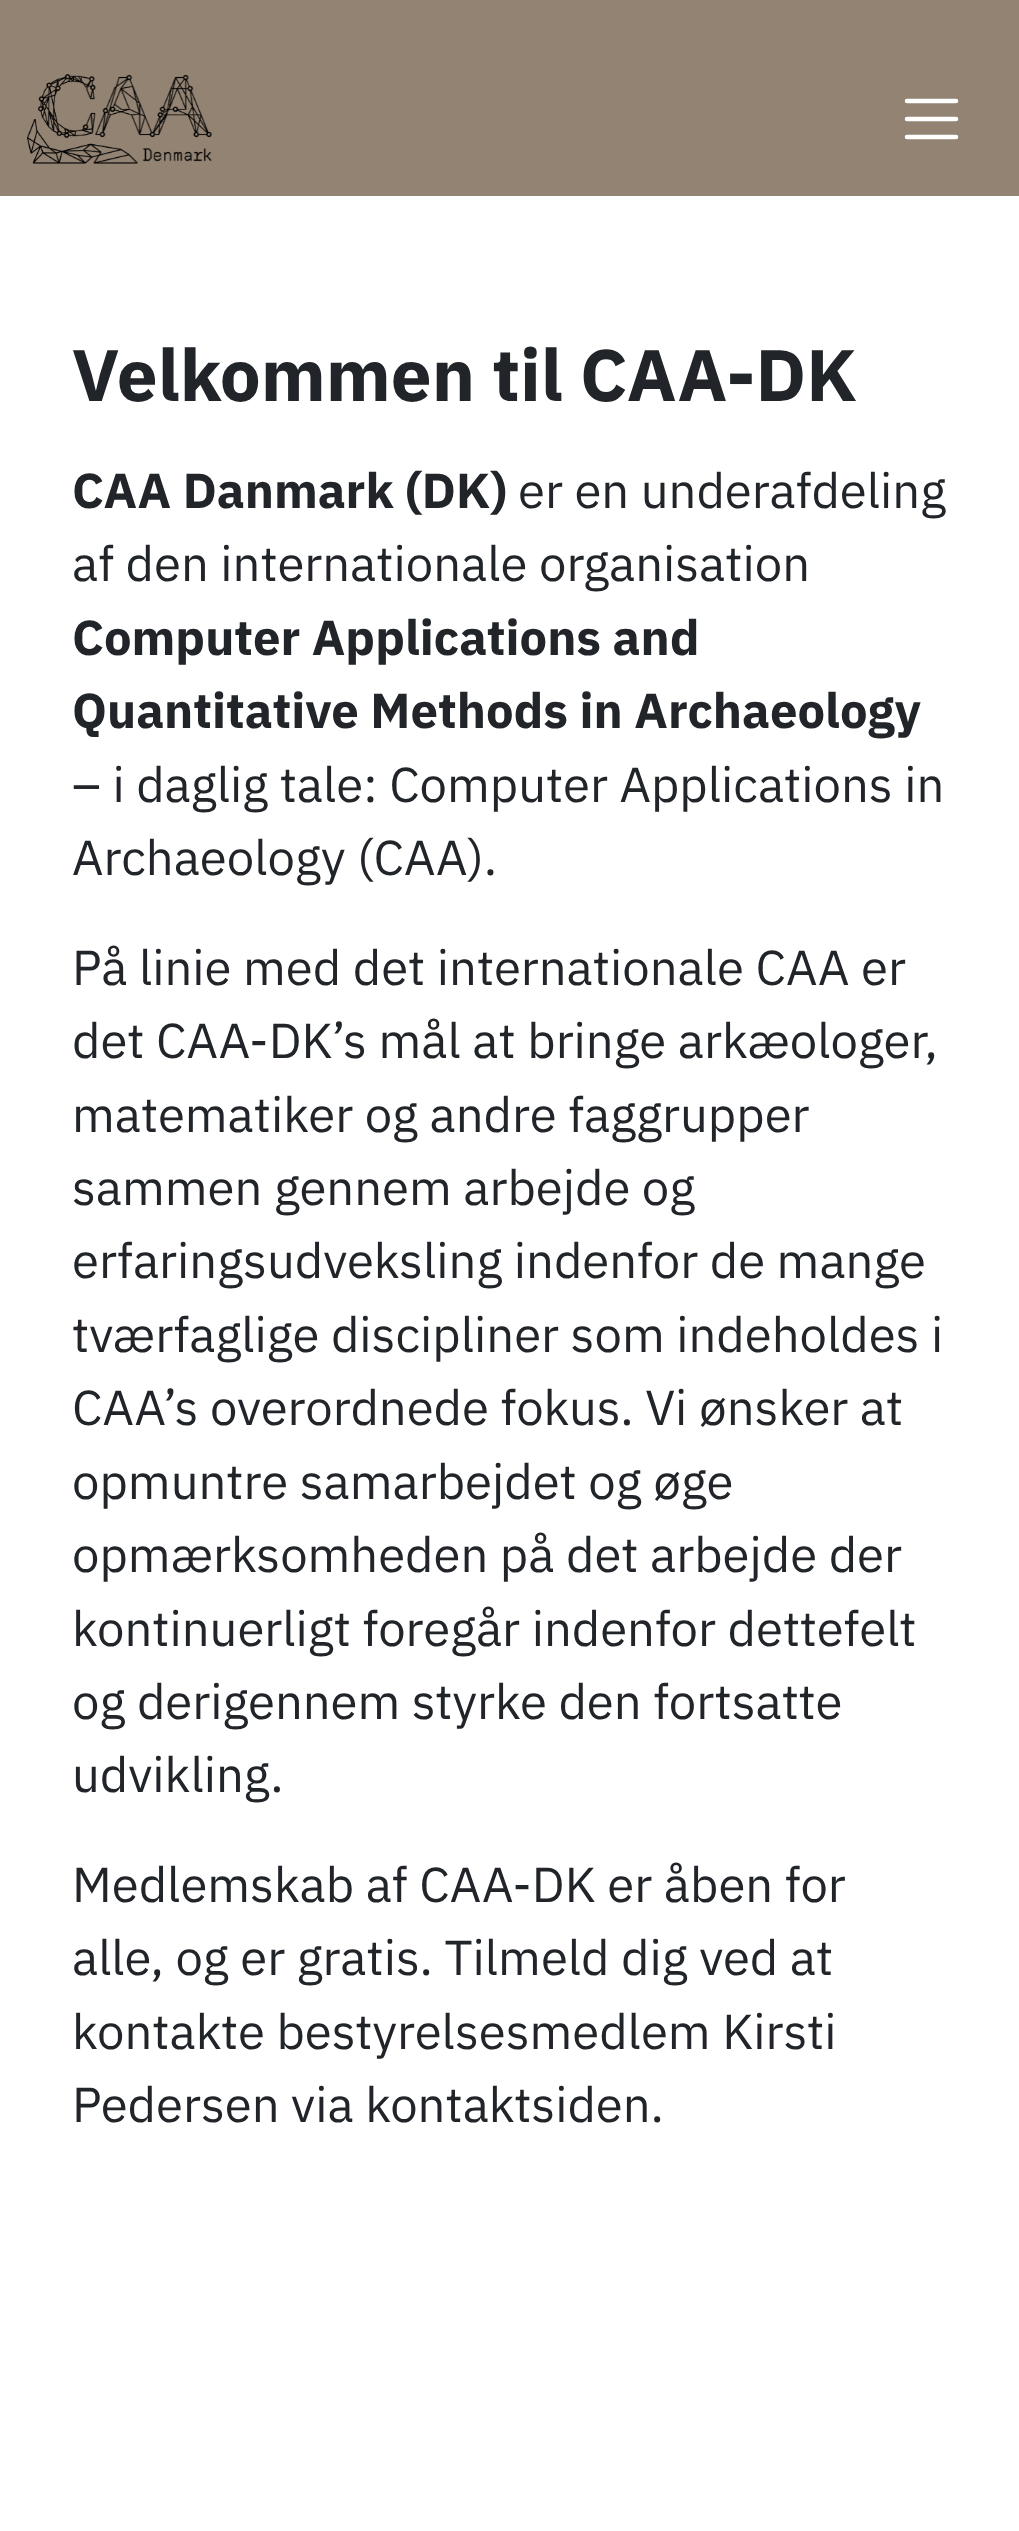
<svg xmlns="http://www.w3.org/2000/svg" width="1019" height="2531">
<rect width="100%" height="100%" fill="#fff"/>
<rect width="1019" height="196" fill="#928373"/>
<image x="27" y="74" width="185" height="90" href="media/1.png"/>
<path d="M907 101h49m-49 18h49m-49 18h49" fill="none" stroke="#fff" stroke-width="4.5" stroke-linecap="round"/>
<text x="72" y="401" style="font-family:IBM Plex Sans;font-size:72.75px;font-weight:bold;fill:#212529">Velkommen til CAA-DK</text>
<text x="72" y="508" style="font-family:IBM Plex Sans;font-size:49px;font-weight:bold;fill:#212529">CAA Danmark (DK)</text>
<text x="518" y="508" style="font-family:IBM Plex Sans;font-size:49px;fill:#212529">er en underafdeling</text>
<text x="72" y="581" style="font-family:IBM Plex Sans;font-size:49px;fill:#212529">af den internationale organisation</text>
<text x="72" y="655" style="font-family:IBM Plex Sans;font-size:49px;font-weight:bold;fill:#212529">Computer Applications and</text>
<text x="72" y="728" style="font-family:IBM Plex Sans;font-size:49px;font-weight:bold;fill:#212529">Quantitative Methods in Archaeology</text>
<text x="72" y="802" style="font-family:IBM Plex Sans;font-size:49px;fill:#212529">– i daglig tale: Computer Applications in</text>
<text x="72" y="875" style="font-family:IBM Plex Sans;font-size:49px;fill:#212529">Archaeology (CAA).</text>
<text x="72" y="985" style="font-family:IBM Plex Sans;font-size:49px;fill:#212529">På linie med det internationale CAA er</text>
<text x="72" y="1058" style="font-family:IBM Plex Sans;font-size:49px;fill:#212529">det CAA-DK’s mål at bringe arkæologer,</text>
<text x="72" y="1132" style="font-family:IBM Plex Sans;font-size:49px;fill:#212529">matematiker og andre faggrupper</text>
<text x="72" y="1205" style="font-family:IBM Plex Sans;font-size:49px;fill:#212529">sammen gennem arbejde og</text>
<text x="72" y="1278" style="font-family:IBM Plex Sans;font-size:49px;fill:#212529">erfaringsudveksling indenfor de mange</text>
<text x="72" y="1352" style="font-family:IBM Plex Sans;font-size:49px;fill:#212529">tværfaglige discipliner som indeholdes i</text>
<text x="72" y="1425" style="font-family:IBM Plex Sans;font-size:49px;fill:#212529">CAA’s overordnede fokus. Vi ønsker at</text>
<text x="72" y="1499" style="font-family:IBM Plex Sans;font-size:49px;fill:#212529">opmuntre samarbejdet og øge</text>
<text x="72" y="1572" style="font-family:IBM Plex Sans;font-size:49px;fill:#212529">opmærksomheden på det arbejde der</text>
<text x="72" y="1646" style="font-family:IBM Plex Sans;font-size:49px;fill:#212529">kontinuerligt foregår indenfor dettefelt</text>
<text x="72" y="1719" style="font-family:IBM Plex Sans;font-size:49px;fill:#212529">og derigennem styrke den fortsatte</text>
<text x="72" y="1792" style="font-family:IBM Plex Sans;font-size:49px;fill:#212529">udvikling.</text>
<text x="72" y="1902" style="font-family:IBM Plex Sans;font-size:49px;fill:#212529">Medlemskab af CAA-DK er åben for</text>
<text x="72" y="1975" style="font-family:IBM Plex Sans;font-size:49px;fill:#212529">alle, og er gratis. Tilmeld dig ved at</text>
<text x="72" y="2049" style="font-family:IBM Plex Sans;font-size:49px;fill:#212529">kontakte bestyrelsesmedlem Kirsti</text>
<text x="72" y="2122" style="font-family:IBM Plex Sans;font-size:49px;fill:#212529">Pedersen via kontaktsiden.</text>
</svg>
